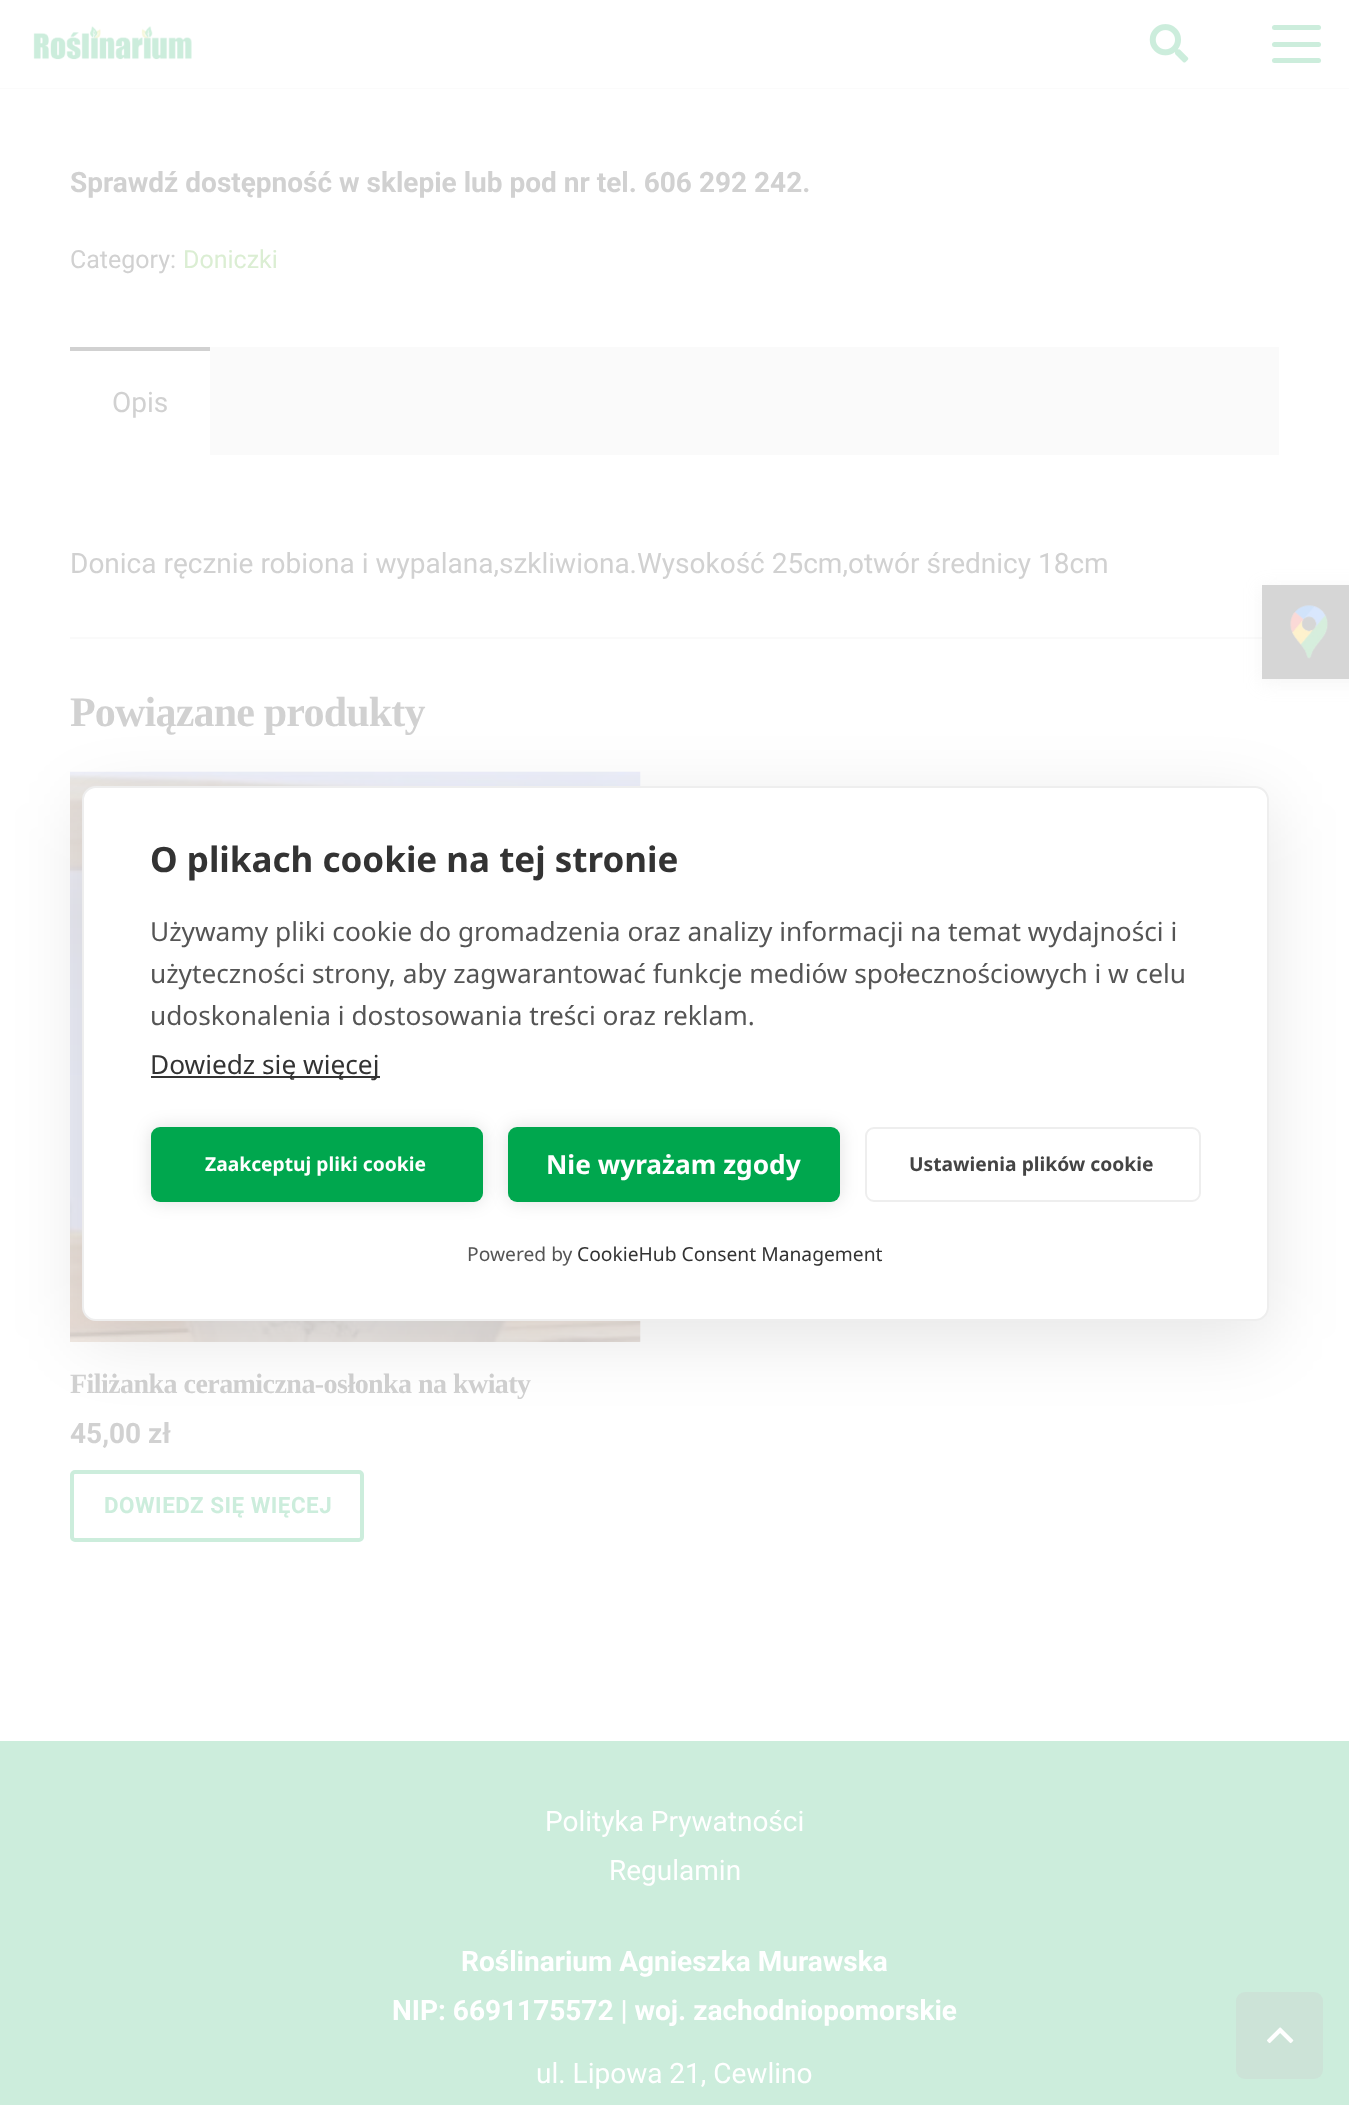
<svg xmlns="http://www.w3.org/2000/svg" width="1349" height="2105">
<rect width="100%" height="100%" fill="#fff"/>
<rect y="88" width="1349" height="1" fill="#fbfbfb"/>
<image x="33" y="26" width="159" height="34" href="media/1.png"/>
<image x="1149" y="24" width="40" height="39" href="media/2.png"/>
<rect x="1272" y="42" width="49" height="5" rx="2.5" fill="#cceddc"/>
<rect x="1272" y="25" width="49" height="5" rx="2.5" fill="#cceddc"/>
<rect x="1272" y="58" width="49" height="5" rx="2.5" fill="#cceddc"/>
<text x="70" y="192" style="font-family:Roboto;font-size:28px;font-weight:bold;fill:#d1d1d1">Sprawdź dostępność w sklepie lub pod nr tel. 606 292 242.</text>
<text x="70" y="268" style="font-family:Roboto;font-size:25px;fill:#d1d1d1">Category:</text>
<text x="183" y="268" style="font-family:Roboto;font-size:25px;fill:#dbeed3">Doniczki</text>
<rect x="210" y="347" width="1069" height="108" fill="#fafafa"/>
<rect x="70" y="347" width="140" height="4" fill="#d1d1d1"/>
<text x="112" y="412" style="font-family:Roboto;font-size:28px;fill:#d1d1d1">Opis</text>
<text x="70" y="573" style="font-family:Roboto;font-size:28px;fill:#d1d1d1">Donica ręcznie robiona i wypalana,szkliwiona.Wysokość 25cm,otwór średnicy 18cm</text>
<rect x="70" y="637" width="1192" height="2" fill="#fafafa"/>
<text x="70" y="726" style="font-family:Liberation Serif;font-size:42px;font-weight:bold;letter-spacing:-0.8px;fill:#d1d1d1">Powiązane produkty</text>
<image x="70" y="771" width="571" height="571" href="media/3.png"/>
<text x="70" y="1393" style="font-family:Liberation Serif;font-size:28px;font-weight:bold;letter-spacing:-0.55px;fill:#d1d1d1">Filiżanka ceramiczna-osłonka na kwiaty</text>
<text x="70" y="1443" style="font-family:Roboto;font-size:28px;font-weight:bold;fill:#d1d1d1">45,00 zł</text>
<rect x="72" y="1472" width="290" height="68" rx="3" fill="none" stroke="#cceddc" stroke-width="4"/>
<text x="104" y="1513" style="font-family:Roboto;font-size:22.4px;font-weight:bold;letter-spacing:0.5px;fill:#cceddc">DOWIEDZ SIĘ WIĘCEJ</text>
<rect x="1262" y="588" width="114" height="95" fill="#cccccc33" filter="blur(9px)"/>
<rect x="1262" y="585" width="87" height="94" fill="#d6d6d6"/>
<image x="1290" y="605" width="39" height="54" href="media/4.png"/>
<rect x="82" y="803" width="1187" height="536" rx="14" fill="#0000001a" filter="blur(35px)"/>
<rect x="83" y="787" width="1185" height="533" rx="13" fill="#fff" stroke="#eee" stroke-width="2"/>
<text x="150" y="872" style="font-family:Noto Sans;font-size:35px;font-weight:bold;fill:#333">O plikach cookie na tej stronie</text>
<text x="150" y="941" style="font-family:Noto Sans;font-size:26.25px;fill:#555">Używamy pliki cookie do gromadzenia oraz analizy informacji na temat wydajności i</text>
<text x="150" y="983" style="font-family:Noto Sans;font-size:26.25px;fill:#555">użyteczności strony, aby zagwarantować funkcje mediów społecznościowych i w celu</text>
<text x="150" y="1025" style="font-family:Noto Sans;font-size:26.25px;fill:#555">udoskonalenia i dostosowania treści oraz reklam.</text>
<rect x="151" y="1076" width="229" height="2" fill="#333"/>
<text x="150" y="1074" style="font-family:Noto Sans;font-size:26.25px;fill:#333">Dowiedz się więcej</text>
<rect x="151" y="1127" width="332" height="75" rx="9" fill="#0000001f" filter="blur(9px)"/>
<rect x="151" y="1127" width="332" height="75" rx="9" fill="#00a74e"/>
<text x="205" y="1171" style="font-family:Noto Sans;font-size:19.25px;font-weight:bold;fill:#fff">Zaakceptuj pliki cookie</text>
<rect x="508" y="1127" width="332" height="75" rx="9" fill="#0000001f" filter="blur(9px)"/>
<rect x="508" y="1127" width="332" height="75" rx="9" fill="#00a74e"/>
<text x="546" y="1174" style="font-family:Noto Sans;font-size:26.25px;font-weight:bold;fill:#fff">Nie wyrażam zgody</text>
<rect x="866" y="1128" width="334" height="73" rx="8" fill="none" stroke="#eee" stroke-width="2"/>
<text x="909" y="1171" style="font-family:Noto Sans;font-size:19.25px;font-weight:bold;fill:#444">Ustawienia plików cookie</text>
<text x="467" y="1261" style="font-family:Noto Sans;font-size:19.25px;fill:#555">Powered by</text>
<text x="577" y="1261" style="font-family:Noto Sans;font-size:19.25px;fill:#333">CookieHub Consent Management</text>
<rect y="1741" width="1349" height="364" fill="#cceddc"/>
<text x="545" y="1831" style="font-family:Roboto;font-size:28px;fill:#fff">Polityka Prywatności</text>
<text x="609" y="1880" style="font-family:Roboto;font-size:28px;fill:#fff">Regulamin</text>
<text x="461" y="1971" style="font-family:Roboto;font-size:28px;font-weight:bold;fill:#fff">Roślinarium Agnieszka Murawska</text>
<text x="392" y="2020" style="font-family:Roboto;font-size:28px;font-weight:bold;fill:#fff">NIP: 6691175572 | woj. zachodniopomorskie</text>
<text x="536" y="2083" style="font-family:Roboto;font-size:28px;fill:#fff">ul. Lipowa 21, Cewlino</text>
<rect x="1236" y="1992" width="87" height="87" rx="9" fill="#cce3d7"/>
<image x="1267" y="2027" width="27" height="17" href="media/5.png"/>
</svg>
